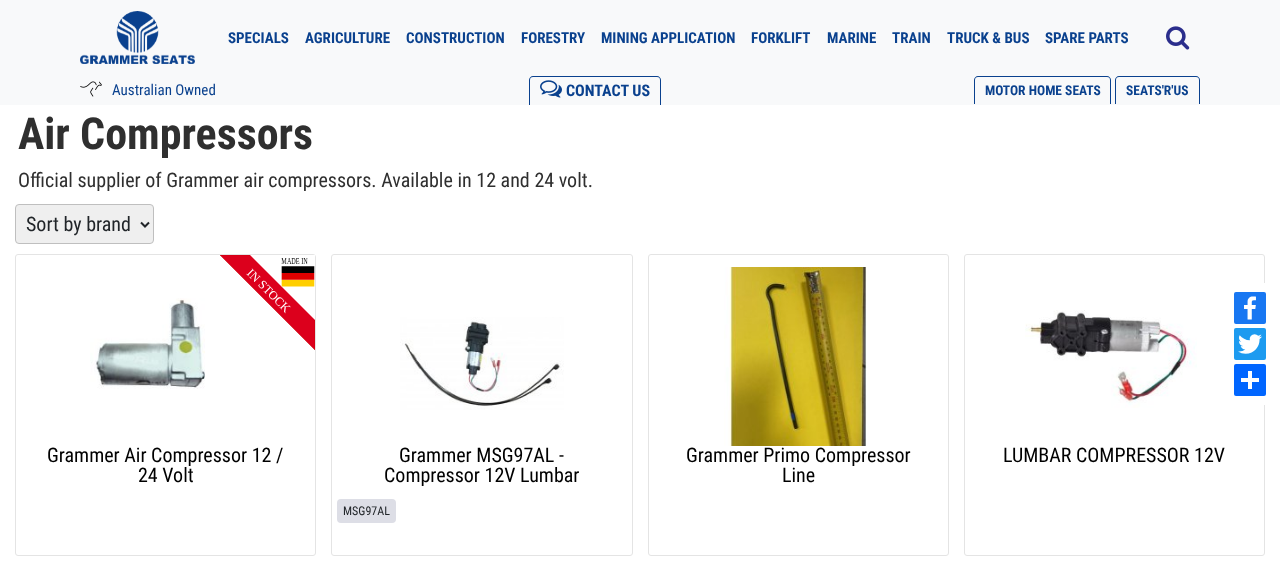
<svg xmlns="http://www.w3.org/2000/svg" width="1280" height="565">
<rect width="100%" height="100%" fill="#fff"/>
<rect width="1280" height="105" fill="#f8f9fa"/>
<image x="80" y="11" width="115" height="53" href="media/1.png"/>
<text x="228" y="43" style="font-family:Roboto Condensed;font-size:15px;font-weight:bold;fill:#0a418e">SPECIALS</text>
<text x="305" y="43" style="font-family:Roboto Condensed;font-size:15px;font-weight:bold;fill:#0a418e">AGRICULTURE</text>
<text x="406" y="43" style="font-family:Roboto Condensed;font-size:15px;font-weight:bold;fill:#0a418e">CONSTRUCTION</text>
<text x="521" y="43" style="font-family:Roboto Condensed;font-size:15px;font-weight:bold;fill:#0a418e">FORESTRY</text>
<text x="601" y="43" style="font-family:Roboto Condensed;font-size:15px;font-weight:bold;fill:#0a418e">MINING APPLICATION</text>
<text x="751" y="43" style="font-family:Roboto Condensed;font-size:15px;font-weight:bold;fill:#0a418e">FORKLIFT</text>
<text x="827" y="43" style="font-family:Roboto Condensed;font-size:15px;font-weight:bold;fill:#0a418e">MARINE</text>
<text x="892" y="43" style="font-family:Roboto Condensed;font-size:15px;font-weight:bold;fill:#0a418e">TRAIN</text>
<text x="947" y="43" style="font-family:Roboto Condensed;font-size:15px;font-weight:bold;fill:#0a418e">TRUCK &amp; BUS</text>
<text x="1045" y="43" style="font-family:Roboto Condensed;font-size:15px;font-weight:bold;fill:#0a418e">SPARE PARTS</text>
<image x="1166" y="26" width="24" height="24" href="media/2.png"/>
<image x="80" y="81" width="22" height="16" href="media/3.png"/>
<text x="112" y="95" style="font-family:Roboto Condensed;font-size:15px;fill:#0a418e">Australian Owned</text>
<path d="M533 76h124c2 0 4 2 4 4v25h-132v-25c0-2 2-4 4-4zm0 1h124c2 0 3 1 3 3v25h-130v-25c0-2 1-3 3-3z" fill="#0a418e" fill-rule="evenodd"/>
<image x="540" y="80" width="22" height="18" href="media/4.png"/>
<text x="566" y="96" style="font-family:Roboto Condensed;font-size:16px;font-weight:bold;fill:#0a418e">CONTACT US</text>
<path d="M978 76h129c2 0 4 2 4 4v24h-137v-24c0-2 2-4 4-4zm0 1h129c2 0 3 1 3 3v24h-135v-24c0-2 1-3 3-3z" fill="#0a418e" fill-rule="evenodd"/>
<text x="985" y="95" style="font-family:Roboto Condensed;font-size:13.5px;font-weight:bold;fill:#0a418e">MOTOR HOME SEATS</text>
<path d="M1119 76h77c2 0 4 2 4 4v24h-85v-24c0-2 2-4 4-4zm0 1h77c2 0 3 1 3 3v24h-83v-24c0-2 1-3 3-3z" fill="#0a418e" fill-rule="evenodd"/>
<text x="1126" y="95" style="font-family:Roboto Condensed;font-size:13.5px;font-weight:bold;fill:#0a418e">SEATS'R'US</text>
<text x="18" y="149" style="font-family:Roboto Condensed;font-size:44px;font-weight:bold;fill:#2f2f2f">Air Compressors</text>
<text x="18" y="187" style="font-family:Roboto Condensed;font-size:20px;fill:#2f2f2f">Official supplier of Grammer air compressors. Available in 12 and 24 volt.</text>
<rect x="15.5" y="204.5" width="138" height="39" rx="3.5" fill="#efefef" stroke="#bfbfbf"/>
<path d="M141 222.5l4 4l4-4" fill="none" stroke="#212529" stroke-width="2"/>
<text x="26" y="231" style="font-family:Roboto Condensed;font-size:20px;fill:#212529">Sort by brand</text>
<rect x="15.5" y="254.5" width="300" height="301" rx="2.5" fill="none" stroke="#e4e4e4"/>
<image x="220" y="255" width="95" height="95" href="media/5.png"/>
<image x="90" y="298" width="115" height="91" href="media/6.png"/>
<text x="47" y="462" style="font-family:Roboto Condensed;font-size:20px;fill:#000">Grammer Air Compressor 12 /</text>
<text x="138" y="482" style="font-family:Roboto Condensed;font-size:20px;fill:#000">24 Volt</text>
<rect x="331.5" y="254.5" width="301" height="301" rx="2.5" fill="none" stroke="#e4e4e4"/>
<image x="400" y="317" width="164" height="93" href="media/7.png"/>
<text x="399" y="462" style="font-family:Roboto Condensed;font-size:20px;fill:#000">Grammer MSG97AL -</text>
<text x="384" y="482" style="font-family:Roboto Condensed;font-size:20px;fill:#000">Compressor 12V Lumbar</text>
<rect x="337" y="499" width="59" height="24" rx="4" fill="#dddee6"/>
<text x="343" y="515" style="font-family:Roboto Condensed;font-size:12px;fill:#212529">MSG97AL</text>
<rect x="648.5" y="254.5" width="300" height="301" rx="2.5" fill="none" stroke="#e4e4e4"/>
<image x="724" y="267" width="143" height="179" href="media/8.png"/>
<text x="686" y="462" style="font-family:Roboto Condensed;font-size:20px;fill:#000">Grammer Primo Compressor</text>
<text x="782" y="482" style="font-family:Roboto Condensed;font-size:20px;fill:#000">Line</text>
<rect x="964.5" y="254.5" width="300" height="301" rx="2.5" fill="none" stroke="#e4e4e4"/>
<image x="1025" y="310" width="172" height="98" href="media/9.png"/>
<text x="1003" y="462" style="font-family:Roboto Condensed;font-size:20px;fill:#000">LUMBAR COMPRESSOR 12V</text>
<rect x="1264" y="283" width="1" height="122" fill="#fff"/>
<rect x="1234" y="292" width="32" height="32" rx="2" fill="#1877f2"/>
<image x="1244" y="296" width="12" height="24" href="media/10.png"/>
<rect x="1234" y="328" width="32" height="32" rx="2" fill="#1d9bf0"/>
<image x="1238" y="334" width="24" height="20" href="media/11.png"/>
<rect x="1234" y="364" width="32" height="32" rx="2" fill="#0166ff"/>
<image x="1241" y="371" width="18" height="18" href="media/12.png"/>
</svg>
